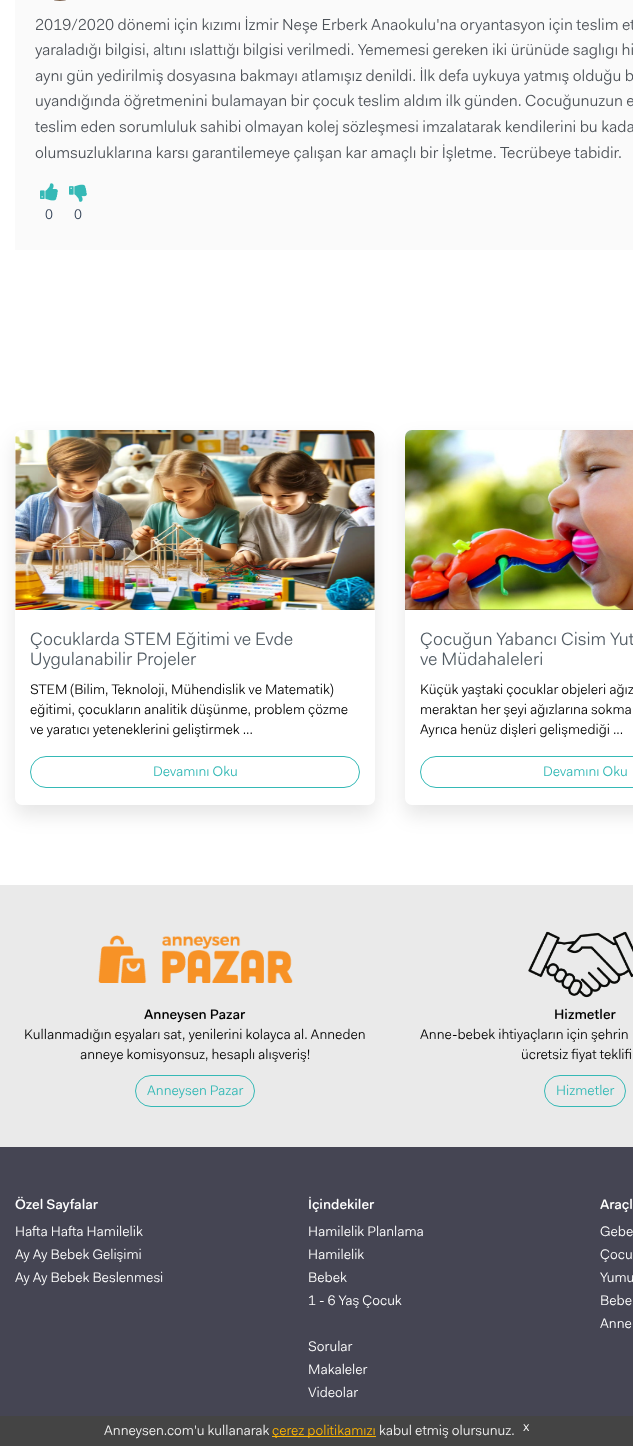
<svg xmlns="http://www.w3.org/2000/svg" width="633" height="1446">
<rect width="100%" height="100%" fill="#fff"/>
<rect x="15" width="618" height="250" fill="#fafafa"/>
<image x="54" y="0" width="12" height="1" href="media/1.png"/>
<text x="35" y="30" style="font-family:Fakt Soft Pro;font-size:16px;font-weight:300;fill:#4d5258">2019/2020 dönemi için kızımı İzmir Neşe Erberk Anaokulu'na oryantasyon için teslim et</text>
<text x="35" y="55" style="font-family:Fakt Soft Pro;font-size:16px;font-weight:300;fill:#4d5258">yaraladığı bilgisi, altını ıslattığı bilgisi verilmedi. Yememesi gereken iki ürünüde saglıgı hi</text>
<text x="35" y="81" style="font-family:Fakt Soft Pro;font-size:16px;font-weight:300;fill:#4d5258">aynı gün yedirilmiş dosyasına bakmayı atlamışız denildi. İlk defa uykuya yatmış olduğu b</text>
<text x="35" y="106" style="font-family:Fakt Soft Pro;font-size:16px;font-weight:300;fill:#4d5258">uyandığında öğretmenini bulamayan bir çocuk teslim aldım ilk günden. Cocuğunuzun e</text>
<text x="35" y="132" style="font-family:Fakt Soft Pro;font-size:16px;font-weight:300;fill:#4d5258">teslim eden sorumluluk sahibi olmayan kolej sözleşmesi imzalatarak kendilerini bu kada</text>
<text x="35" y="158" style="font-family:Fakt Soft Pro;font-size:16px;font-weight:300;fill:#4d5258">olumsuzluklarına karsı garantilemeye çalışan kar amaçlı bir İşletme. Tecrübeye tabidir.</text>
<image x="40" y="183" width="18" height="18" href="media/2.png"/>
<text x="45" y="219" style="font-family:Fakt Soft Pro;font-size:14px;font-weight:300;fill:#303f54">0</text>
<image x="69" y="184" width="18" height="18" href="media/3.png"/>
<text x="74" y="219" style="font-family:Fakt Soft Pro;font-size:14px;font-weight:300;fill:#303f54">0</text>
<rect x="15" y="440" width="360" height="375" rx="7" fill="#0000001a" filter="blur(10px)"/>
<rect x="15" y="430" width="360" height="375" rx="7" fill="#fff"/>
<image x="15" y="430" width="360" height="180" href="media/4.png"/>
<text x="30" y="645" style="font-family:Fakt Soft Pro;font-size:18px;font-weight:300;fill:#535d65">Çocuklarda STEM Eğitimi ve Evde</text>
<text x="30" y="665" style="font-family:Fakt Soft Pro;font-size:18px;font-weight:300;fill:#535d65">Uygulanabilir Projeler</text>
<text x="30" y="694" style="font-family:Fakt Soft Pro;font-size:14px;font-weight:300;fill:#000">STEM (Bilim, Teknoloji, Mühendislik ve Matematik)</text>
<text x="30" y="714" style="font-family:Fakt Soft Pro;font-size:14px;font-weight:300;fill:#000">eğitimi, çocukların analitik düşünme, problem çözme</text>
<text x="30" y="734" style="font-family:Fakt Soft Pro;font-size:14px;font-weight:300;fill:#000">ve yaratıcı yeteneklerini geliştirmek ...</text>
<rect x="30.5" y="756.5" width="329" height="31" rx="15.5" fill="none" stroke="#35b9b6"/>
<text x="153" y="776" style="font-family:Fakt Soft Pro;font-size:14px;font-weight:300;fill:#35b9b6">Devamını Oku</text>
<rect x="405" y="440" width="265" height="375" rx="7" fill="#0000001a" filter="blur(10px)"/>
<rect x="405" y="430" width="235" height="375" rx="7" fill="#fff"/>
<image x="405" y="430" width="228" height="180" href="media/5.png"/>
<text x="420" y="645" style="font-family:Fakt Soft Pro;font-size:18px;font-weight:300;fill:#535d65">Çocuğun Yabancı Cisim Yut</text>
<text x="420" y="665" style="font-family:Fakt Soft Pro;font-size:18px;font-weight:300;fill:#535d65">ve Müdahaleleri</text>
<text x="420" y="694" style="font-family:Fakt Soft Pro;font-size:14px;font-weight:300;fill:#000">Küçük yaştaki çocuklar objeleri ağız</text>
<text x="420" y="714" style="font-family:Fakt Soft Pro;font-size:14px;font-weight:300;fill:#000">meraktan her şeyi ağızlarına sokma</text>
<text x="420" y="734" style="font-family:Fakt Soft Pro;font-size:14px;font-weight:300;fill:#000">Ayrıca henüz dişleri gelişmediği ...</text>
<rect x="420.5" y="756.5" width="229" height="31" rx="15.5" fill="none" stroke="#35b9b6"/>
<text x="543" y="776" style="font-family:Fakt Soft Pro;font-size:14px;font-weight:300;fill:#35b9b6">Devamını Oku</text>
<rect y="885" width="633" height="262" fill="#eaeaea"/>
<image x="98" y="935" width="195" height="48" href="media/6.png"/>
<text x="144" y="1019" style="font-family:Fakt Soft Pro;font-size:14px;font-weight:500;fill:#000">Anneysen Pazar</text>
<text x="24" y="1039" style="font-family:Fakt Soft Pro;font-size:14px;font-weight:300;fill:#000">Kullanmadığın eşyaları sat, yenilerini kolayca al. Anneden</text>
<text x="80" y="1059" style="font-family:Fakt Soft Pro;font-size:14px;font-weight:300;fill:#000">anneye komisyonsuz, hesaplı alışveriş!</text>
<rect x="135.5" y="1075.5" width="119" height="31" rx="15.5" fill="none" stroke="#35b9b6"/>
<text x="147" y="1095" style="font-family:Fakt Soft Pro;font-size:14px;font-weight:300;fill:#35b9b6">Anneysen Pazar</text>
<image x="528" y="931" width="105" height="67" href="media/7.png"/>
<text x="554" y="1019" style="font-family:Fakt Soft Pro;font-size:14px;font-weight:500;fill:#000">Hizmetler</text>
<text x="420" y="1039" style="font-family:Fakt Soft Pro;font-size:14px;font-weight:300;fill:#000">Anne-bebek ihtiyaçların için şehrin</text>
<text x="521" y="1059" style="font-family:Fakt Soft Pro;font-size:14px;font-weight:300;fill:#000">ücretsiz fiyat teklifi</text>
<rect x="544.5" y="1075.5" width="81" height="31" rx="15.5" fill="none" stroke="#35b9b6"/>
<text x="556" y="1095" style="font-family:Fakt Soft Pro;font-size:14px;font-weight:300;fill:#35b9b6">Hizmetler</text>
<rect y="1147" width="633" height="269" fill="#454553"/>
<text x="15" y="1209" style="font-family:Fakt Soft Pro;font-size:14px;font-weight:500;fill:#fff">Özel Sayfalar</text>
<text x="15" y="1236" style="font-family:Fakt Soft Pro;font-size:14px;font-weight:300;fill:#fff">Hafta Hafta Hamilelik</text>
<text x="15" y="1259" style="font-family:Fakt Soft Pro;font-size:14px;font-weight:300;fill:#fff">Ay Ay Bebek Gelişimi</text>
<text x="15" y="1282" style="font-family:Fakt Soft Pro;font-size:14px;font-weight:300;fill:#fff">Ay Ay Bebek Beslenmesi</text>
<text x="308" y="1209" style="font-family:Fakt Soft Pro;font-size:14px;font-weight:500;fill:#fff">İçindekiler</text>
<text x="308" y="1236" style="font-family:Fakt Soft Pro;font-size:14px;font-weight:300;fill:#fff">Hamilelik Planlama</text>
<text x="308" y="1259" style="font-family:Fakt Soft Pro;font-size:14px;font-weight:300;fill:#fff">Hamilelik</text>
<text x="308" y="1282" style="font-family:Fakt Soft Pro;font-size:14px;font-weight:300;fill:#fff">Bebek</text>
<text x="308" y="1305" style="font-family:Fakt Soft Pro;font-size:14px;font-weight:300;fill:#fff">1 - 6 Yaş Çocuk</text>
<text x="308" y="1351" style="font-family:Fakt Soft Pro;font-size:14px;font-weight:300;fill:#fff">Sorular</text>
<text x="308" y="1374" style="font-family:Fakt Soft Pro;font-size:14px;font-weight:300;fill:#fff">Makaleler</text>
<text x="308" y="1397" style="font-family:Fakt Soft Pro;font-size:14px;font-weight:300;fill:#fff">Videolar</text>
<text x="600" y="1209" style="font-family:Fakt Soft Pro;font-size:14px;font-weight:500;fill:#fff">Araçl</text>
<text x="600" y="1236" style="font-family:Fakt Soft Pro;font-size:14px;font-weight:300;fill:#fff">Gebe</text>
<text x="600" y="1259" style="font-family:Fakt Soft Pro;font-size:14px;font-weight:300;fill:#fff">Çocu</text>
<text x="600" y="1282" style="font-family:Fakt Soft Pro;font-size:14px;font-weight:300;fill:#fff">Yumu</text>
<text x="600" y="1305" style="font-family:Fakt Soft Pro;font-size:14px;font-weight:300;fill:#fff">Bebe</text>
<text x="600" y="1328" style="font-family:Fakt Soft Pro;font-size:14px;font-weight:300;fill:#fff">Anne</text>
<rect y="1416" width="633" height="30" fill="#444"/>
<text x="104" y="1435" style="font-family:Fakt Soft Pro;font-size:14px;font-weight:300;fill:#f2f2f2">Anneysen.com'u kullanarak</text>
<rect x="272" y="1436" width="104" height="1" fill="#ffb501"/>
<text x="272" y="1435" style="font-family:Fakt Soft Pro;font-size:14px;font-weight:300;fill:#ffb501">çerez politikamızı</text>
<text x="379" y="1435" style="font-family:Fakt Soft Pro;font-size:14px;font-weight:300;fill:#f2f2f2">kabul etmiş olursunuz.</text>
<text x="523" y="1431" style="font-family:Fakt Soft Pro;font-size:14px;font-weight:300;fill:#fff">x</text>
</svg>
